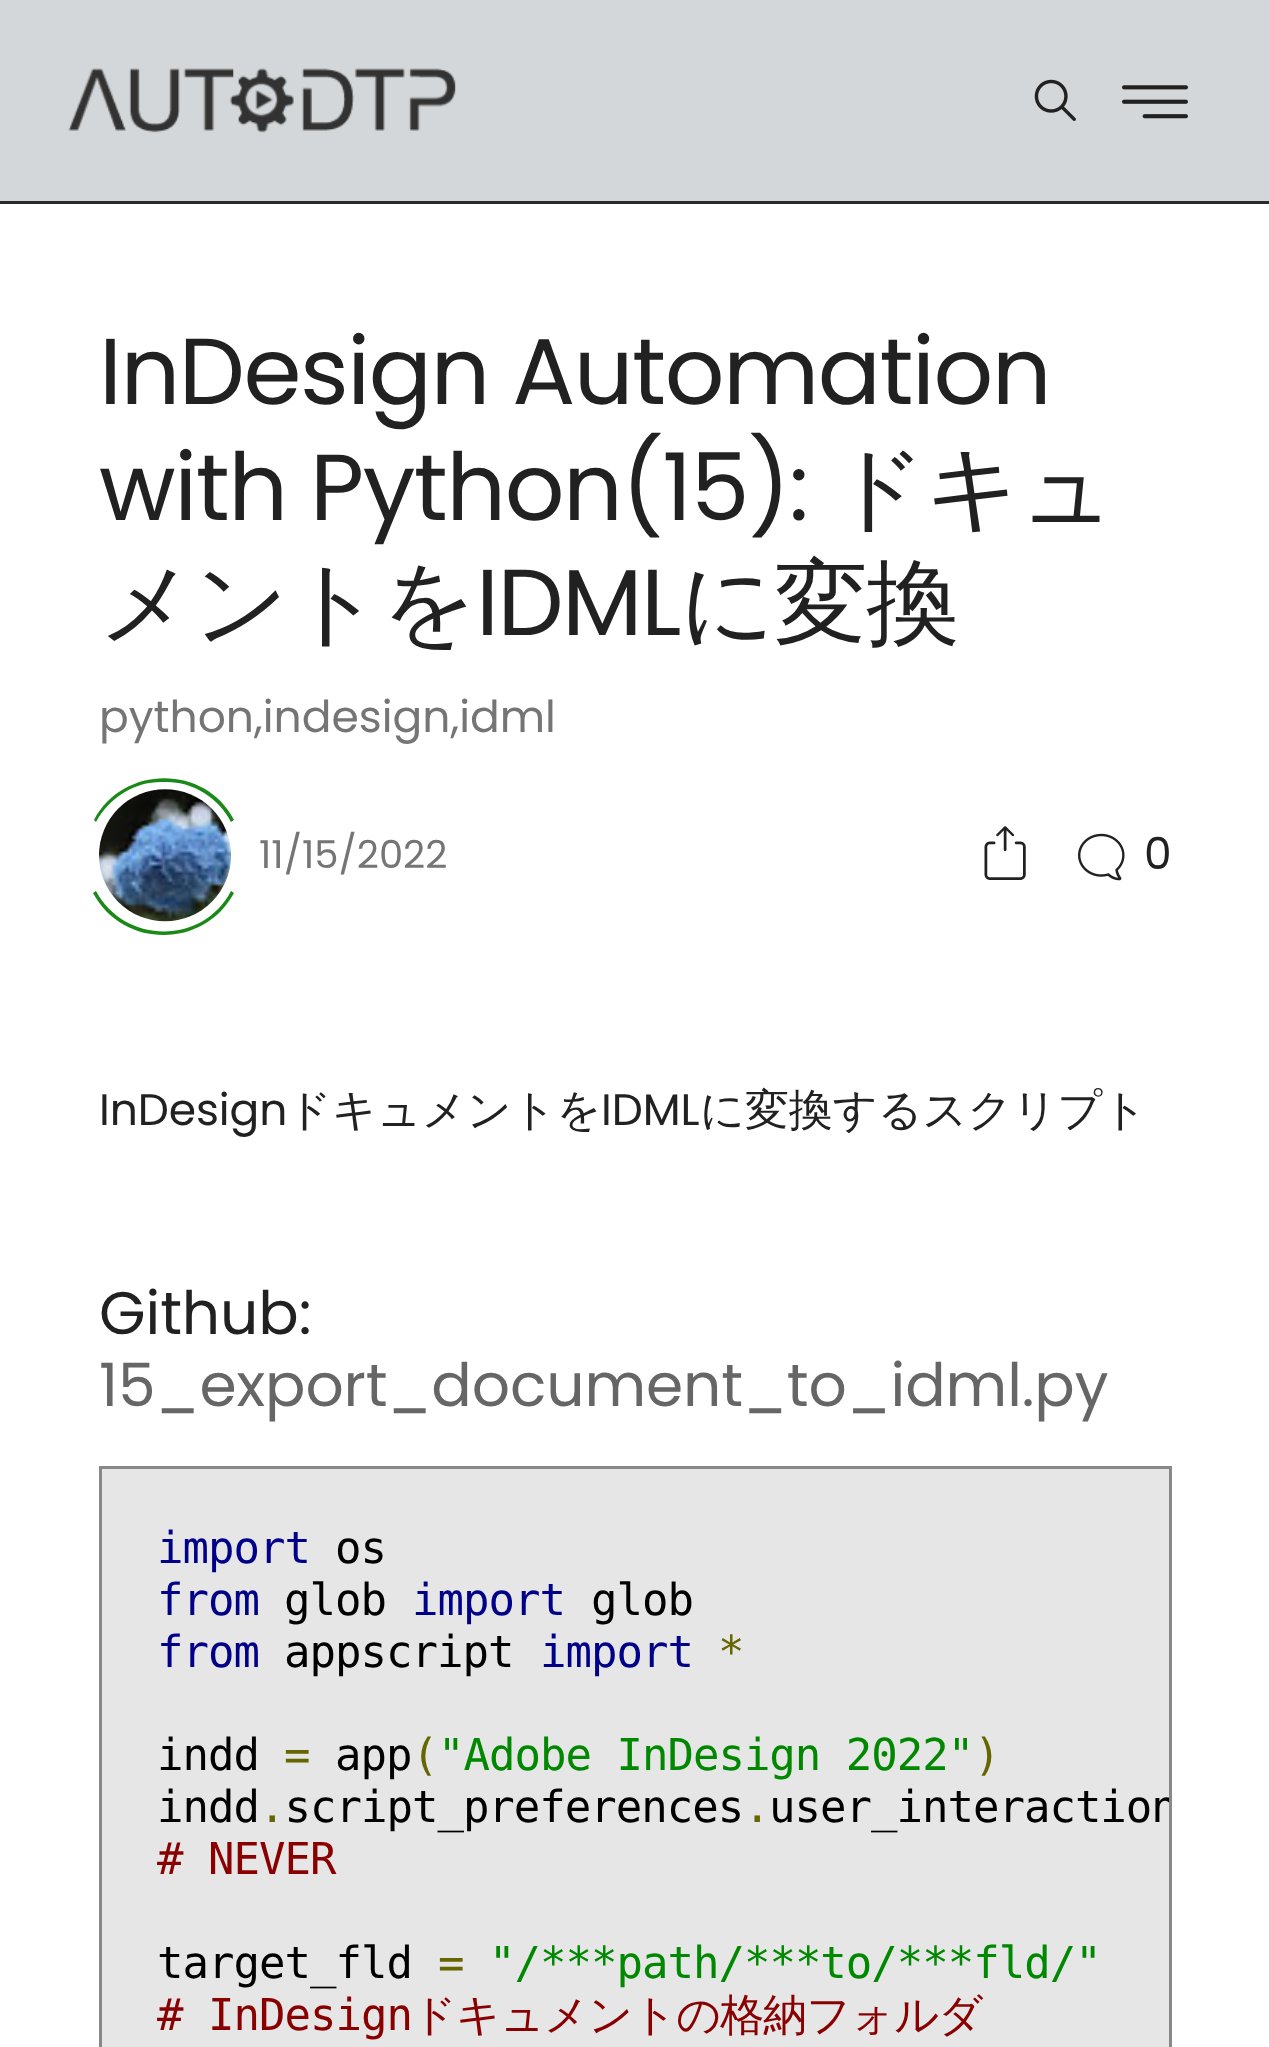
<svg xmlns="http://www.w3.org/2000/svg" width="1269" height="2047">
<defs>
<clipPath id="clip1"><rect x="102" y="1469" width="1067" height="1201"/></clipPath>
</defs>
<rect width="100%" height="100%" fill="#fff"/>
<rect width="1269" height="201" fill="#d4d7d9"/>
<rect y="201" width="1269" height="3" fill="#292929"/>
<image x="68" y="68" width="388" height="65" href="media/1.png"/>
<image x="1034" y="79" width="42" height="42" href="media/2.png"/>
<image x="1122" y="85" width="66" height="34" href="media/3.png"/>
<text x="99" y="404" style="font-family:Poppins;font-size:93.5px;letter-spacing:-1.5px;fill:#212121">InDesign Automation</text>
<text x="99" y="520" style="font-family:Poppins;font-size:93.5px;letter-spacing:-1.5px;fill:#212121">with Python(15):</text>
<text x="831" y="520" style="font-family:WenQuanYi Zen Hei;font-size:93.5px;font-weight:500;letter-spacing:-1.5px;fill:#212121">ドキュ</text>
<text x="99" y="635" style="font-family:WenQuanYi Zen Hei;font-size:93.5px;font-weight:500;letter-spacing:-1.5px;fill:#212121">メントを</text>
<text x="476" y="635" style="font-family:Poppins;font-size:93.5px;letter-spacing:-1.5px;fill:#212121">IDML</text>
<text x="680" y="635" style="font-family:WenQuanYi Zen Hei;font-size:93.5px;font-weight:500;letter-spacing:-1.5px;fill:#212121">に変換</text>
<text x="99" y="732" style="font-family:Poppins;font-size:44px;fill:#757575">python,indesign,idml</text>
<path d="M164 782c-29-1-54 15-68 40l-2-2c29-55 111-56 140 0l-3 2c-13-25-39-41-67-40zm-68 109c29 54 107 54 135 0l3 2c-30 56-111 56-141 0z" fill="#1a8917" fill-rule="evenodd"/>
<image x="99" y="789" width="132" height="133" href="media/4.png"/>
<text x="259" y="868" style="font-family:Poppins;font-size:38.5px;fill:#757575">11/15/2022</text>
<image x="984" y="826" width="42" height="54" href="media/5.png"/>
<image x="1078" y="833" width="47" height="48" href="media/6.png"/>
<text x="1144" y="869" style="font-family:Poppins;font-size:44px;fill:#212121">0</text>
<text x="99" y="1125" style="font-family:Poppins;font-size:44px;letter-spacing:-0.1px;fill:#212121">InDesign</text>
<text x="287" y="1125" style="font-family:WenQuanYi Zen Hei;font-size:44px;font-weight:500;letter-spacing:-0.1px;fill:#212121">ドキュメントを</text>
<text x="601" y="1125" style="font-family:Poppins;font-size:44px;letter-spacing:-0.1px;fill:#212121">IDML</text>
<text x="700" y="1125" style="font-family:WenQuanYi Zen Hei;font-size:44px;font-weight:500;letter-spacing:-0.1px;fill:#212121">に変換するスクリプト</text>
<text x="99" y="1334" style="font-family:Poppins;font-size:59.9px;letter-spacing:-0.1px;fill:#212121">Github:</text>
<text x="99" y="1406" style="font-family:Poppins;font-size:59.9px;letter-spacing:-0.1px;fill:#666">15_export_document_to_idml.py</text>
<rect x="100.5" y="1467.5" width="1070" height="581" fill="#e6e6e6" stroke="#888" stroke-width="3"/>
<text x="157" y="1563" style="font-family:DejaVu Sans Mono;font-size:44px;letter-spacing:-1px;fill:#008">import</text>
<text x="335" y="1563" style="font-family:DejaVu Sans Mono;font-size:44px;letter-spacing:-1px;fill:#000">os</text>
<text x="157" y="1615" style="font-family:DejaVu Sans Mono;font-size:44px;letter-spacing:-1px;fill:#008">from</text>
<text x="284" y="1615" style="font-family:DejaVu Sans Mono;font-size:44px;letter-spacing:-1px;fill:#000">glob</text>
<text x="412" y="1615" style="font-family:DejaVu Sans Mono;font-size:44px;letter-spacing:-1px;fill:#008">import</text>
<text x="591" y="1615" style="font-family:DejaVu Sans Mono;font-size:44px;letter-spacing:-1px;fill:#000">glob</text>
<text x="157" y="1667" style="font-family:DejaVu Sans Mono;font-size:44px;letter-spacing:-1px;fill:#008">from</text>
<text x="284" y="1667" style="font-family:DejaVu Sans Mono;font-size:44px;letter-spacing:-1px;fill:#000">appscript</text>
<text x="540" y="1667" style="font-family:DejaVu Sans Mono;font-size:44px;letter-spacing:-1px;fill:#008">import</text>
<text x="718" y="1667" style="font-family:DejaVu Sans Mono;font-size:44px;letter-spacing:-1px;fill:#660">*</text>
<text x="157" y="1770" style="font-family:DejaVu Sans Mono;font-size:44px;letter-spacing:-1px;fill:#000">indd</text>
<text x="284" y="1770" style="font-family:DejaVu Sans Mono;font-size:44px;letter-spacing:-1px;fill:#660">=</text>
<text x="335" y="1770" style="font-family:DejaVu Sans Mono;font-size:44px;letter-spacing:-1px;fill:#000">app</text>
<text x="412" y="1770" style="font-family:DejaVu Sans Mono;font-size:44px;letter-spacing:-1px;fill:#660">(</text>
<text x="438" y="1770" style="font-family:DejaVu Sans Mono;font-size:44px;letter-spacing:-1px;fill:#080">"Adobe InDesign 2022"</text>
<text x="974" y="1770" style="font-family:DejaVu Sans Mono;font-size:44px;letter-spacing:-1px;fill:#660">)</text>
<text x="157" y="1822" style="font-family:DejaVu Sans Mono;font-size:44px;letter-spacing:-1px;fill:#000">indd script_preferences</text>
<g clip-path="url(#clip1)">
<text x="769" y="1822" style="font-family:DejaVu Sans Mono;font-size:44px;letter-spacing:-1px;fill:#000">user_interaction</text>
</g>
<text x="259" y="1822" style="font-family:DejaVu Sans Mono;font-size:44px;letter-spacing:-1px;fill:#660">.</text>
<text x="744" y="1822" style="font-family:DejaVu Sans Mono;font-size:44px;letter-spacing:-1px;fill:#660">.</text>
<text x="157" y="1874" style="font-family:DejaVu Sans Mono;font-size:44px;letter-spacing:-1px;fill:#800"># NEVER</text>
<text x="157" y="1978" style="font-family:DejaVu Sans Mono;font-size:44px;letter-spacing:-1px;fill:#000">target_fld</text>
<text x="438" y="1978" style="font-family:DejaVu Sans Mono;font-size:44px;letter-spacing:-1px;fill:#660">=</text>
<text x="489" y="1978" style="font-family:DejaVu Sans Mono;font-size:44px;letter-spacing:-1px;fill:#080">"/***path/***to/***fld/"</text>
<text x="157" y="2030" style="font-family:DejaVu Sans Mono;font-size:44px;letter-spacing:-1px;fill:#800"># InDesign</text>
<text x="412" y="2030" style="font-family:WenQuanYi Zen Hei;font-size:44px;font-weight:500;letter-spacing:-1px;fill:#800">ドキュメントの格納フォルダ</text>
</svg>
